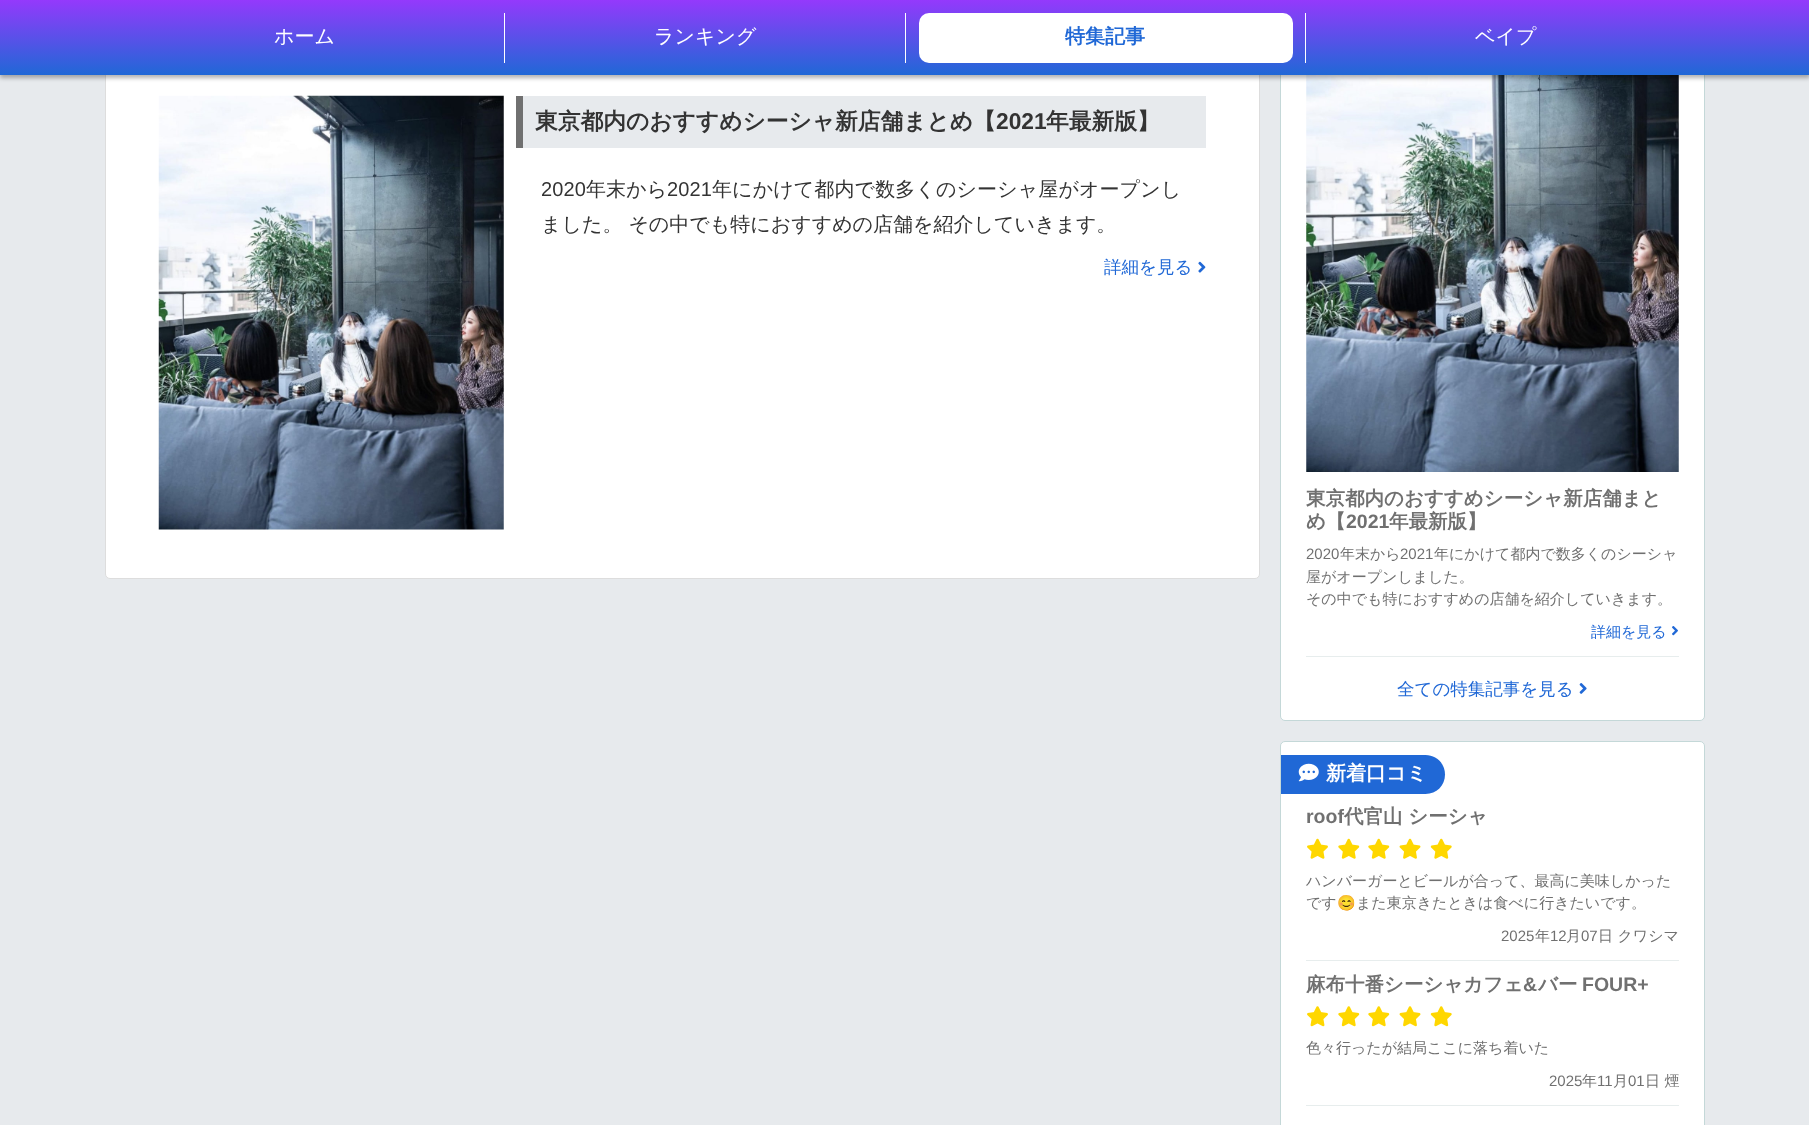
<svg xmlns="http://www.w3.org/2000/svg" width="1809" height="1125">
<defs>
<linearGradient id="g1" gradientUnits="userSpaceOnUse" x1="905" y1="0" x2="905" y2="75"><stop offset="0" stop-color="#9439fc"/><stop offset="1" stop-color="#2068d6"/></linearGradient>
</defs>
<rect width="100%" height="100%" fill="#e7eaed"/>
<rect x="105.5" y="-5.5" width="1154" height="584" rx="4.5" fill="#fff" stroke="#ddd"/>
<rect x="1280.5" y="-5.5" width="424" height="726" rx="4.5" fill="#fff" stroke="#c4d8d8"/>
<image x="1306" y="75" width="373" height="397" href="media/3.png"/>
<rect y="3" width="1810" height="75" fill="#0000004d" filter="blur(2px)"/>
<rect width="1809" height="75" fill="url(#g1)"/>
<rect x="504" y="13" width="1" height="50" fill="#fff"/>
<text x="274" y="43" style="font-family:WenQuanYi Zen Hei;font-size:20px;font-weight:500;fill:#fff">ホーム</text>
<rect x="905" y="13" width="1" height="50" fill="#fff"/>
<text x="654" y="43" style="font-family:WenQuanYi Zen Hei;font-size:20px;font-weight:500;fill:#fff">ランキング</text>
<rect x="1305" y="13" width="1" height="50" fill="#fff"/>
<rect x="919" y="13" width="374" height="50" rx="10" fill="#fff"/>
<text x="1065" y="43" style="font-family:WenQuanYi Zen Hei;font-size:20px;font-weight:bold;fill:#2068d6">特集記事</text>
<text x="1475" y="43" style="font-family:WenQuanYi Zen Hei;font-size:20px;font-weight:500;fill:#fff">ベイプ</text>
<image x="158" y="95" width="346" height="435" href="media/1.png"/>
<rect x="523" y="96" width="683" height="52" fill="#e7eaed"/>
<rect x="516" y="96" width="7" height="52" fill="#707070"/>
<text x="535" y="129" style="font-family:WenQuanYi Zen Hei;font-size:22.75px;font-weight:bold;fill:#333">東京都内のおすすめシーシャ新店舗まとめ【</text>
<text x="996" y="129" style="font-family:Liberation Sans;font-size:22.75px;font-weight:bold;fill:#333">2021</text>
<text x="1046" y="129" style="font-family:WenQuanYi Zen Hei;font-size:22.75px;font-weight:bold;fill:#333">年最新版】</text>
<text x="541" y="196" style="font-family:Liberation Sans;font-size:20px;letter-spacing:0.1px;fill:#333">2020</text>
<text x="586" y="196" style="font-family:WenQuanYi Zen Hei;font-size:20px;font-weight:500;letter-spacing:0.1px;fill:#333">年末から</text>
<text x="667" y="196" style="font-family:Liberation Sans;font-size:20px;letter-spacing:0.1px;fill:#333">2021</text>
<text x="712" y="196" style="font-family:WenQuanYi Zen Hei;font-size:20px;font-weight:500;letter-spacing:0.1px;fill:#333">年にかけて都内で数多くのシーシャ屋がオープンし</text>
<text x="541" y="231" style="font-family:WenQuanYi Zen Hei;font-size:20px;font-weight:500;fill:#333">ました。 その中でも特におすすめの店舗を紹介していきます。</text>
<text x="1104" y="273" style="font-family:WenQuanYi Zen Hei;font-size:17.5px;font-weight:500;fill:#2068d6">詳細を見る</text>
<image x="1198" y="261" width="8" height="12" href="media/2.png"/>
<rect x="1306" y="656" width="373" height="1" fill="#e7eded"/>
<text x="1306" y="505" style="font-family:WenQuanYi Zen Hei;font-size:19.5px;font-weight:bold;fill:#707070">東京都内のおすすめシーシャ新店舗まと</text>
<text x="1306" y="528" style="font-family:WenQuanYi Zen Hei;font-size:19.5px;font-weight:bold;fill:#707070">め【</text>
<text x="1346" y="528" style="font-family:Liberation Sans;font-size:19.5px;font-weight:bold;fill:#707070">2021</text>
<text x="1389" y="528" style="font-family:WenQuanYi Zen Hei;font-size:19.5px;font-weight:bold;fill:#707070">年最新版】</text>
<text x="1306" y="559" style="font-family:Liberation Sans;font-size:15px;fill:#707070">2020</text>
<text x="1340" y="559" style="font-family:WenQuanYi Zen Hei;font-size:15px;font-weight:500;fill:#707070">年末から</text>
<text x="1400" y="559" style="font-family:Liberation Sans;font-size:15px;fill:#707070">2021</text>
<text x="1434" y="559" style="font-family:WenQuanYi Zen Hei;font-size:15px;font-weight:500;fill:#707070">年にかけて都内で数多くのシーシャ</text>
<text x="1306" y="582" style="font-family:WenQuanYi Zen Hei;font-size:15px;font-weight:500;fill:#707070">屋がオープンしました。</text>
<text x="1306" y="604" style="font-family:WenQuanYi Zen Hei;font-size:15px;font-weight:500;fill:#707070">その中でも特におすすめの店舗を紹介していきます。</text>
<text x="1591" y="637" style="font-family:WenQuanYi Zen Hei;font-size:15px;font-weight:500;fill:#2068d6">詳細を見る</text>
<image x="1672" y="626" width="6" height="10" href="media/4.png"/>
<text x="1397" y="695" style="font-family:WenQuanYi Zen Hei;font-size:17.5px;font-weight:500;fill:#2068d6">全ての特集記事を見る</text>
<image x="1579" y="683" width="8" height="11" href="media/5.png"/>
<rect x="1280.5" y="741.5" width="424" height="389" rx="4.5" fill="#fff" stroke="#c4d8d8"/>
<path d="M1281 755h144.5c11 0 19.5 8.5 19.5 19.5c0 11-8.5 19.5-19.5 19.5h-144.5z" fill="#2068d6"/>
<image x="1298" y="763" width="21" height="19" href="media/6.png"/>
<text x="1326" y="780" style="font-family:WenQuanYi Zen Hei;font-size:20px;font-weight:bold;fill:#fff">新着口コミ</text>
<rect x="1306" y="960" width="373" height="1" fill="#e7eded"/>
<text x="1306" y="823" style="font-family:Liberation Sans;font-size:19.5px;font-weight:bold;fill:#707070">roof</text>
<text x="1344" y="823" style="font-family:WenQuanYi Zen Hei;font-size:19.5px;font-weight:bold;fill:#707070">代官山 シーシャ</text>
<image x="1307" y="838" width="21" height="21" href="media/7.png"/>
<image x="1338" y="838" width="22" height="21" href="media/8.png"/>
<image x="1368" y="838" width="22" height="21" href="media/8.png"/>
<image x="1399" y="838" width="22" height="21" href="media/9.png"/>
<image x="1430" y="838" width="22" height="21" href="media/10.png"/>
<text x="1306" y="886" style="font-family:WenQuanYi Zen Hei;font-size:15px;font-weight:500;fill:#707070">ハンバーガーとビールが合って、最高に美味しかった</text>
<text x="1306" y="908" style="font-family:WenQuanYi Zen Hei;font-size:15px;font-weight:500;fill:#707070">です</text>
<text x="1337" y="908" style="font-family:Noto Color Emoji;font-size:15px;fill:#707070">😊</text>
<text x="1356" y="908" style="font-family:WenQuanYi Zen Hei;font-size:15px;font-weight:500;fill:#707070">また東京きたときは食べに行きたいです。</text>
<text x="1501" y="941" style="font-family:Liberation Sans;font-size:15px;fill:#707070">2025</text>
<text x="1535" y="941" style="font-family:WenQuanYi Zen Hei;font-size:15px;font-weight:500;fill:#707070">年</text>
<text x="1550" y="941" style="font-family:Liberation Sans;font-size:15px;fill:#707070">12</text>
<text x="1566" y="941" style="font-family:WenQuanYi Zen Hei;font-size:15px;font-weight:500;fill:#707070">月</text>
<text x="1581" y="941" style="font-family:Liberation Sans;font-size:15px;fill:#707070">07</text>
<text x="1598" y="941" style="font-family:WenQuanYi Zen Hei;font-size:15px;font-weight:500;fill:#707070">日 クワシマ</text>
<rect x="1306" y="1105" width="373" height="1" fill="#e7eded"/>
<text x="1306" y="991" style="font-family:WenQuanYi Zen Hei;font-size:19.5px;font-weight:bold;fill:#707070">麻布十番シーシャカフェ</text>
<text x="1523" y="991" style="font-family:Liberation Sans;font-size:19.5px;font-weight:bold;fill:#707070">&amp;</text>
<text x="1538" y="991" style="font-family:WenQuanYi Zen Hei;font-size:19.5px;font-weight:bold;fill:#707070">バー</text>
<text x="1582" y="991" style="font-family:Liberation Sans;font-size:19.5px;font-weight:bold;fill:#707070">FOUR+</text>
<image x="1307" y="1006" width="21" height="21" href="media/11.png"/>
<image x="1338" y="1006" width="22" height="21" href="media/12.png"/>
<image x="1368" y="1006" width="22" height="21" href="media/12.png"/>
<image x="1399" y="1006" width="22" height="21" href="media/13.png"/>
<image x="1430" y="1006" width="22" height="21" href="media/14.png"/>
<text x="1306" y="1053" style="font-family:WenQuanYi Zen Hei;font-size:15px;font-weight:500;fill:#707070">色々行ったが結局ここに落ち着いた</text>
<text x="1549" y="1086" style="font-family:Liberation Sans;font-size:15px;fill:#707070">2025</text>
<text x="1582" y="1086" style="font-family:WenQuanYi Zen Hei;font-size:15px;font-weight:500;fill:#707070">年</text>
<text x="1597" y="1086" style="font-family:Liberation Sans;font-size:15px;fill:#707070">11</text>
<text x="1613" y="1086" style="font-family:WenQuanYi Zen Hei;font-size:15px;font-weight:500;fill:#707070">月</text>
<text x="1628" y="1086" style="font-family:Liberation Sans;font-size:15px;fill:#707070">01</text>
<text x="1645" y="1086" style="font-family:WenQuanYi Zen Hei;font-size:15px;font-weight:500;fill:#707070">日 煙</text>
</svg>
